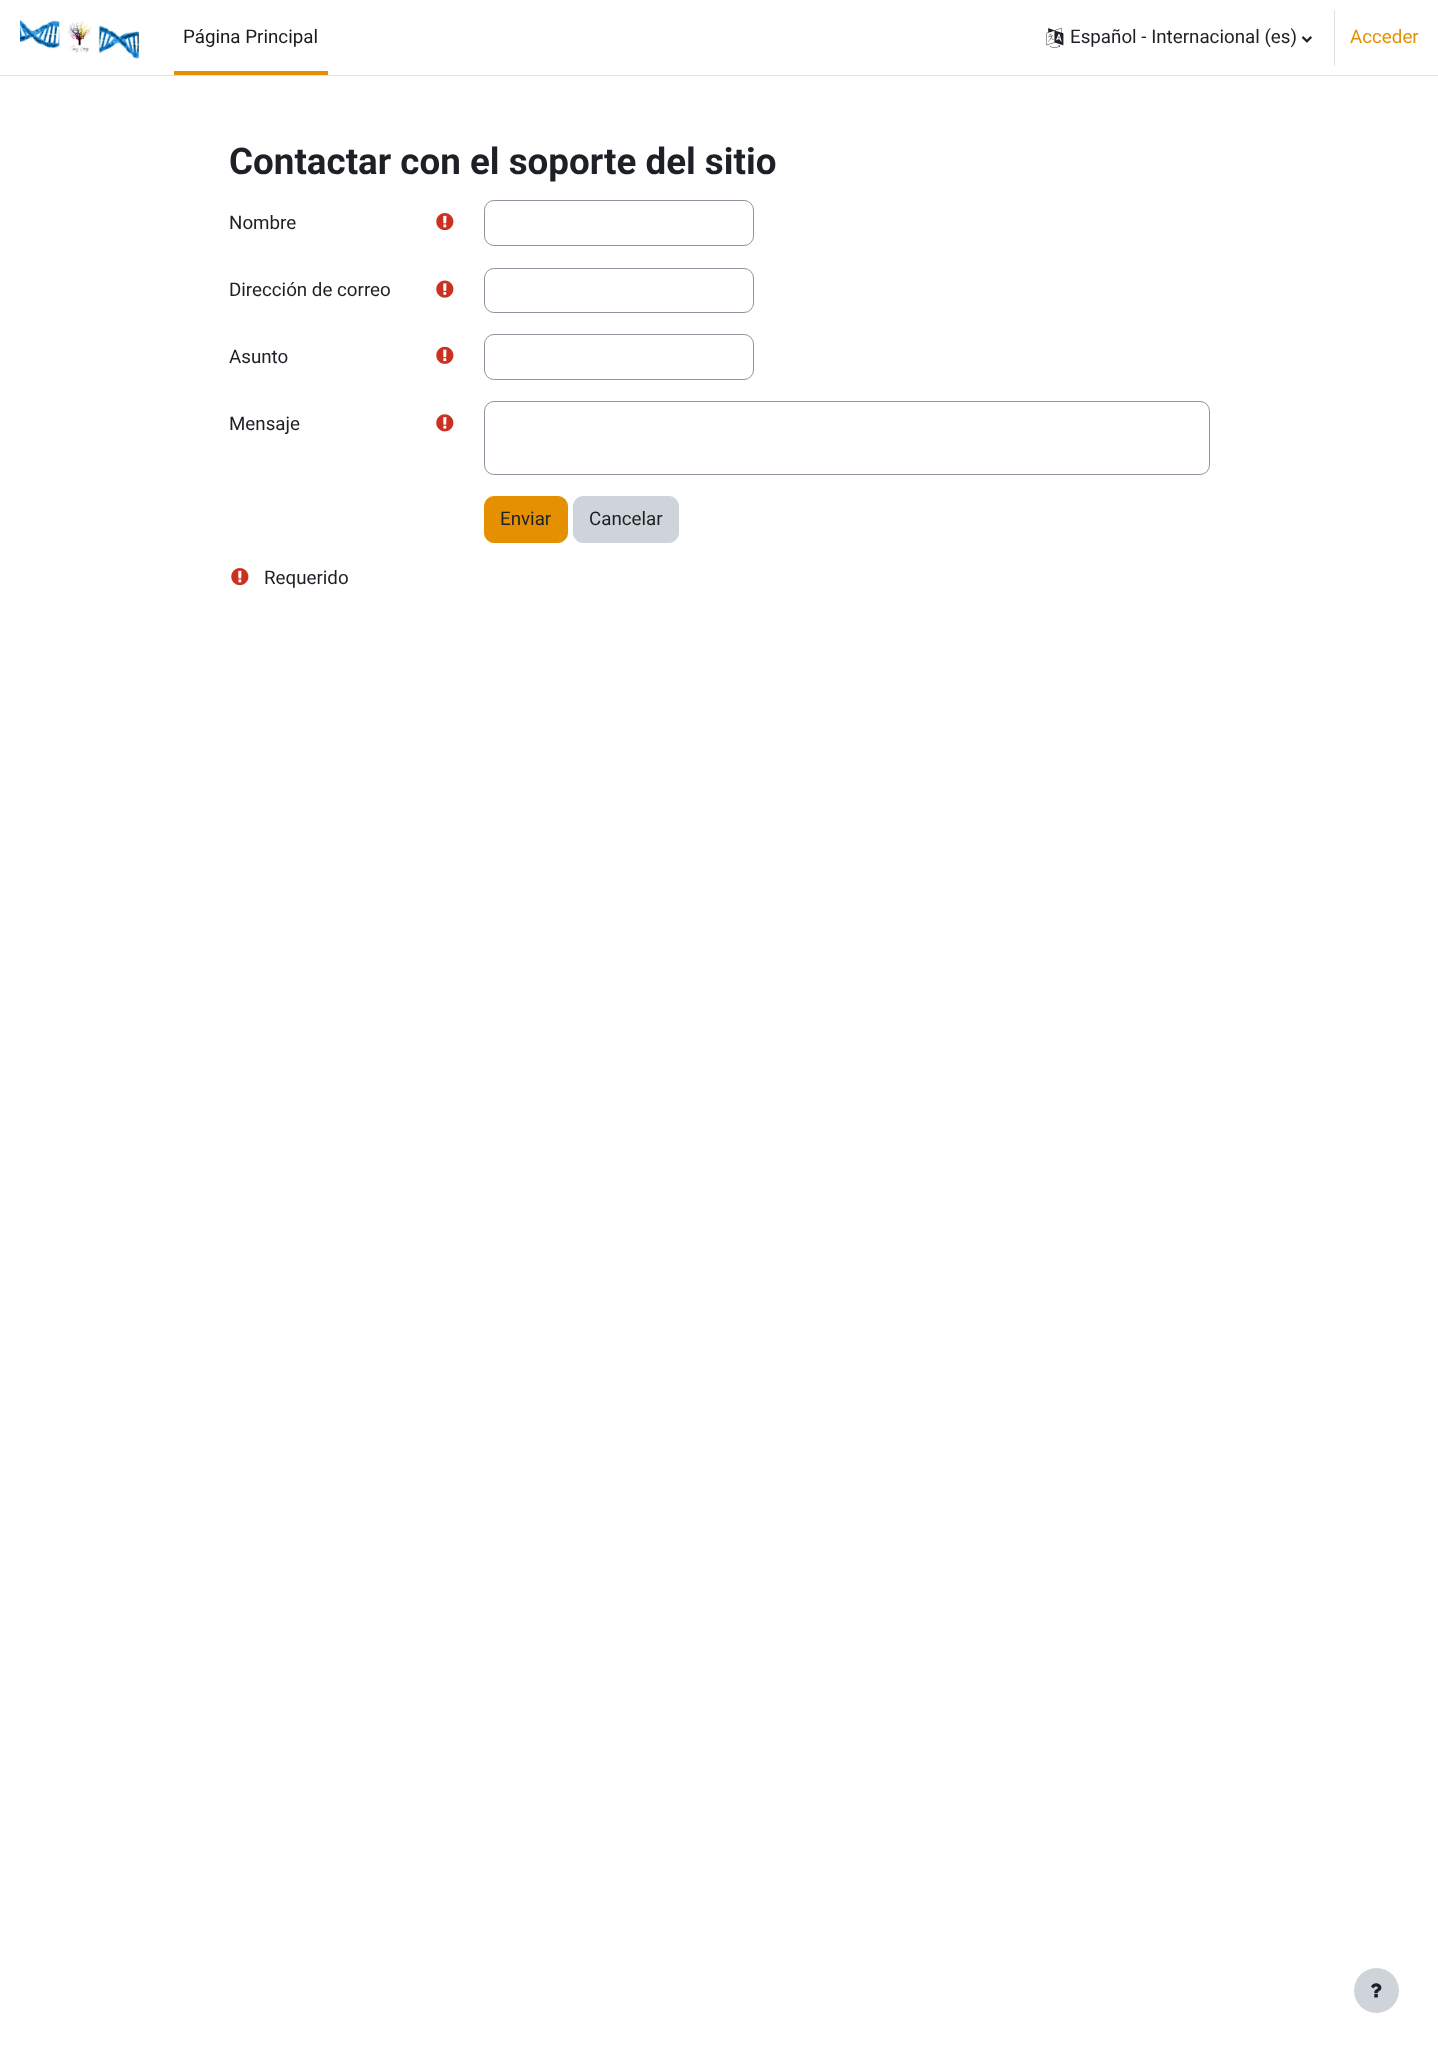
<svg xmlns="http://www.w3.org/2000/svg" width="1438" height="2052">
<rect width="100%" height="100%" fill="#fff"/>
<rect y="75" width="1438" height="1" fill="#dee2e6"/>
<image x="20" y="20" width="119" height="39" href="media/1.png"/>
<rect x="174" y="71" width="154" height="4" fill="#e59000"/>
<text x="183" y="43" style="font-family:Roboto;font-size:18.75px;fill:#1a1a1a">Página Principal</text>
<image x="1046" y="27" width="18" height="21" href="media/2.png"/>
<text x="1070" y="43" style="font-family:Roboto;font-size:18.75px;fill:#1d2125">Español - Internacional (es)</text>
<image x="1301" y="36" width="11" height="7" href="media/3.png"/>
<rect x="1334" y="10" width="1" height="56" fill="#dee2e6"/>
<text x="1350" y="43" style="font-family:Roboto;font-size:18.75px;fill:#e59000">Acceder</text>
<text x="229" y="174" style="font-family:Roboto;font-size:36.75px;font-weight:bold;fill:#1d2125">Contactar con el soporte del sitio</text>
<text x="229" y="229" style="font-family:Roboto;font-size:18.75px;fill:#1d2125">Nombre</text>
<image x="436" y="213" width="18" height="18" href="media/4.png"/>
<rect x="484.5" y="200.5" width="269" height="45" rx="9.5" fill="none" stroke="#8f959e"/>
<text x="229" y="296" style="font-family:Roboto;font-size:18.75px;fill:#1d2125">Dirección de correo</text>
<image x="436" y="280" width="18" height="18" href="media/5.png"/>
<rect x="484.5" y="268.5" width="269" height="44" rx="9.5" fill="none" stroke="#8f959e"/>
<text x="229" y="363" style="font-family:Roboto;font-size:18.75px;fill:#1d2125">Asunto</text>
<image x="436" y="346" width="18" height="18" href="media/6.png"/>
<rect x="484.5" y="334.5" width="269" height="45" rx="9.5" fill="none" stroke="#8f959e"/>
<text x="229" y="430" style="font-family:Roboto;font-size:18.75px;fill:#1d2125">Mensaje</text>
<image x="436" y="414" width="18" height="18" href="media/7.png"/>
<rect x="484.5" y="401.5" width="725" height="73" rx="9.5" fill="none" stroke="#8f959e"/>
<rect x="484.5" y="496.5" width="83" height="46" rx="9.5" fill="#e59000" stroke="#e59000"/>
<text x="500" y="525" style="font-family:Roboto;font-size:18.75px;fill:#1d2125">Enviar</text>
<rect x="573.5" y="496.5" width="105" height="46" rx="9.5" fill="#ced4da" stroke="#ced4da"/>
<text x="589" y="525" style="font-family:Roboto;font-size:18.75px;fill:#1d2125">Cancelar</text>
<image x="231" y="568" width="18" height="18" href="media/4.png"/>
<text x="264" y="584" style="font-family:Roboto;font-size:18.75px;fill:#1d2125">Requerido</text>
<circle cx="1376.5" cy="1990.5" r="22.5" fill="#ced4da"/>
<image x="1371" y="1983" width="11" height="15" href="media/8.png"/>
</svg>
